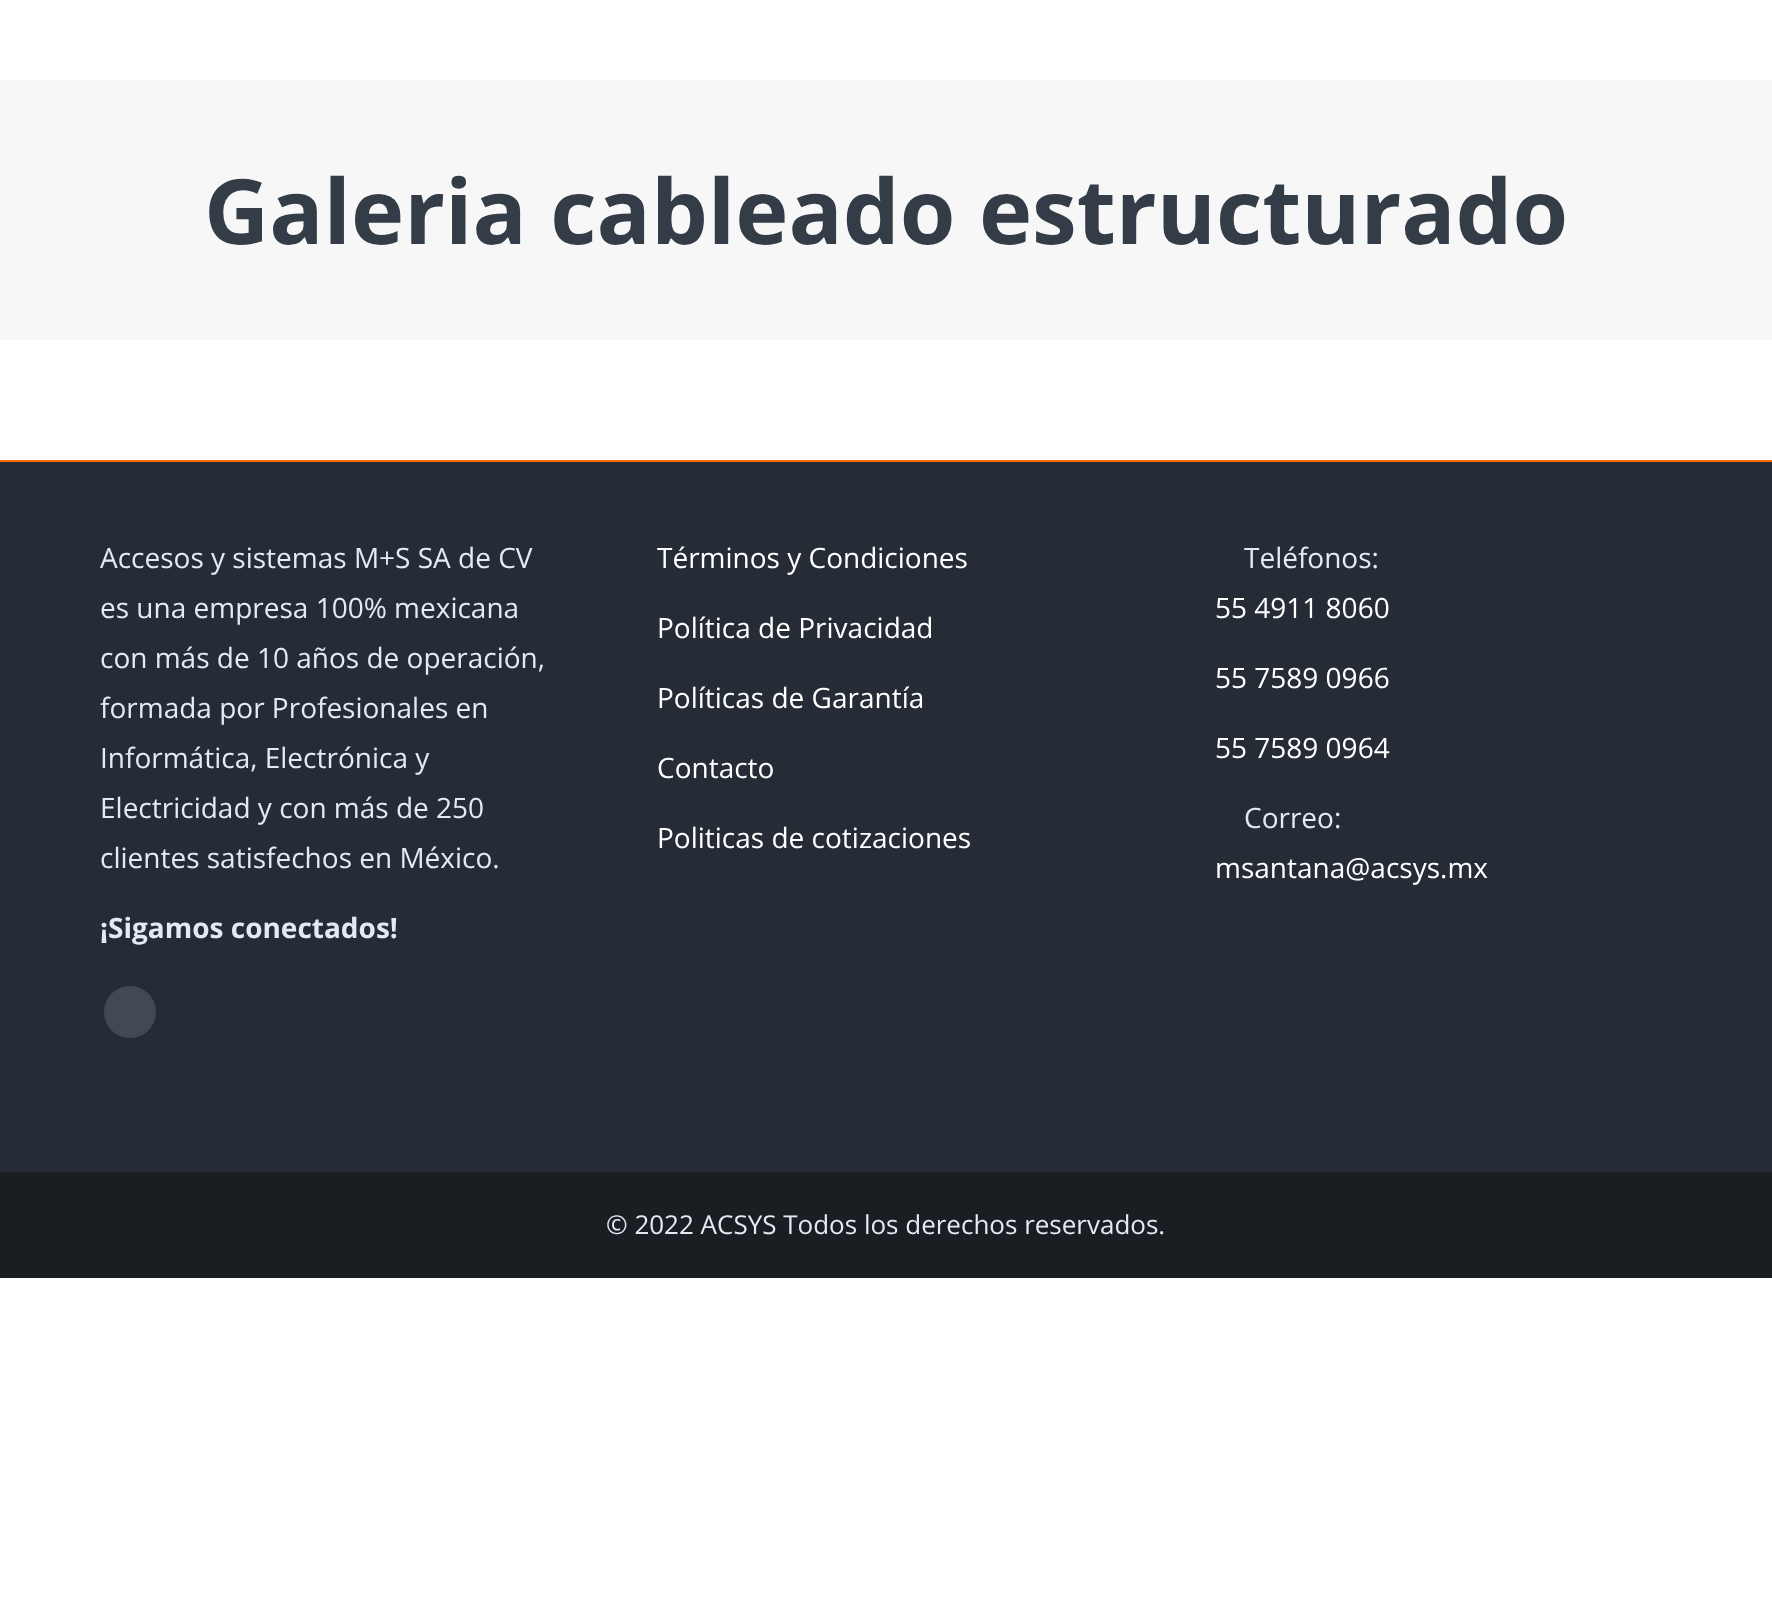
<svg xmlns="http://www.w3.org/2000/svg" width="1772" height="1619">
<rect width="100%" height="100%" fill="#fff"/>
<rect y="80" width="1772" height="260" fill="#f7f7f7"/>
<text x="204" y="244" style="font-family:Open Sans;font-size:90px;font-weight:bold;fill:#343c47">Galeria cableado estructurado</text>
<rect y="462" width="1772" height="710" fill="#252c35"/>
<rect y="460" width="1772" height="2" fill="#ff6c00"/>
<text x="100" y="568" style="font-family:Open Sans;font-size:28px;fill:#e3eaf4">Accesos y sistemas M+S SA de CV</text>
<text x="100" y="618" style="font-family:Open Sans;font-size:28px;fill:#e3eaf4">es una empresa 100% mexicana</text>
<text x="100" y="668" style="font-family:Open Sans;font-size:28px;fill:#e3eaf4">con más de 10 años de operación,</text>
<text x="100" y="718" style="font-family:Open Sans;font-size:28px;fill:#e3eaf4">formada por Profesionales en</text>
<text x="100" y="768" style="font-family:Open Sans;font-size:28px;fill:#e3eaf4">Informática, Electrónica y</text>
<text x="100" y="818" style="font-family:Open Sans;font-size:28px;fill:#e3eaf4">Electricidad y con más de 250</text>
<text x="100" y="868" style="font-family:Open Sans;font-size:28px;fill:#e3eaf4">clientes satisfechos en México.</text>
<text x="100" y="938" style="font-family:Open Sans;font-size:28px;font-weight:bold;fill:#e3eaf4">¡Sigamos conectados!</text>
<circle cx="130" cy="1012" r="26" fill="#424952"/>
<text x="657" y="568" style="font-family:Open Sans;font-size:28px;fill:#fff">Términos y Condiciones</text>
<text x="657" y="638" style="font-family:Open Sans;font-size:28px;fill:#fff">Política de Privacidad</text>
<text x="657" y="708" style="font-family:Open Sans;font-size:28px;fill:#fff">Políticas de Garantía</text>
<text x="657" y="778" style="font-family:Open Sans;font-size:28px;fill:#fff">Contacto</text>
<text x="657" y="848" style="font-family:Open Sans;font-size:28px;fill:#fff">Politicas de cotizaciones</text>
<text x="1244" y="568" style="font-family:Open Sans;font-size:28px;fill:#e3eaf4">Teléfonos:</text>
<text x="1215" y="618" style="font-family:Open Sans;font-size:28px;fill:#fff">55 4911 8060</text>
<text x="1215" y="688" style="font-family:Open Sans;font-size:28px;fill:#fff">55 7589 0966</text>
<text x="1215" y="758" style="font-family:Open Sans;font-size:28px;fill:#fff">55 7589 0964</text>
<text x="1244" y="828" style="font-family:Open Sans;font-size:28px;fill:#e3eaf4">Correo:</text>
<text x="1215" y="878" style="font-family:Open Sans;font-size:28px;fill:#fff">msantana@acsys.mx</text>
<rect y="1172" width="1772" height="106" fill="#1a1e23"/>
<text x="606" y="1234" style="font-family:Open Sans;font-size:26px;fill:#e3eaf4">© 2022 ACSYS Todos los derechos reservados.</text>
</svg>
